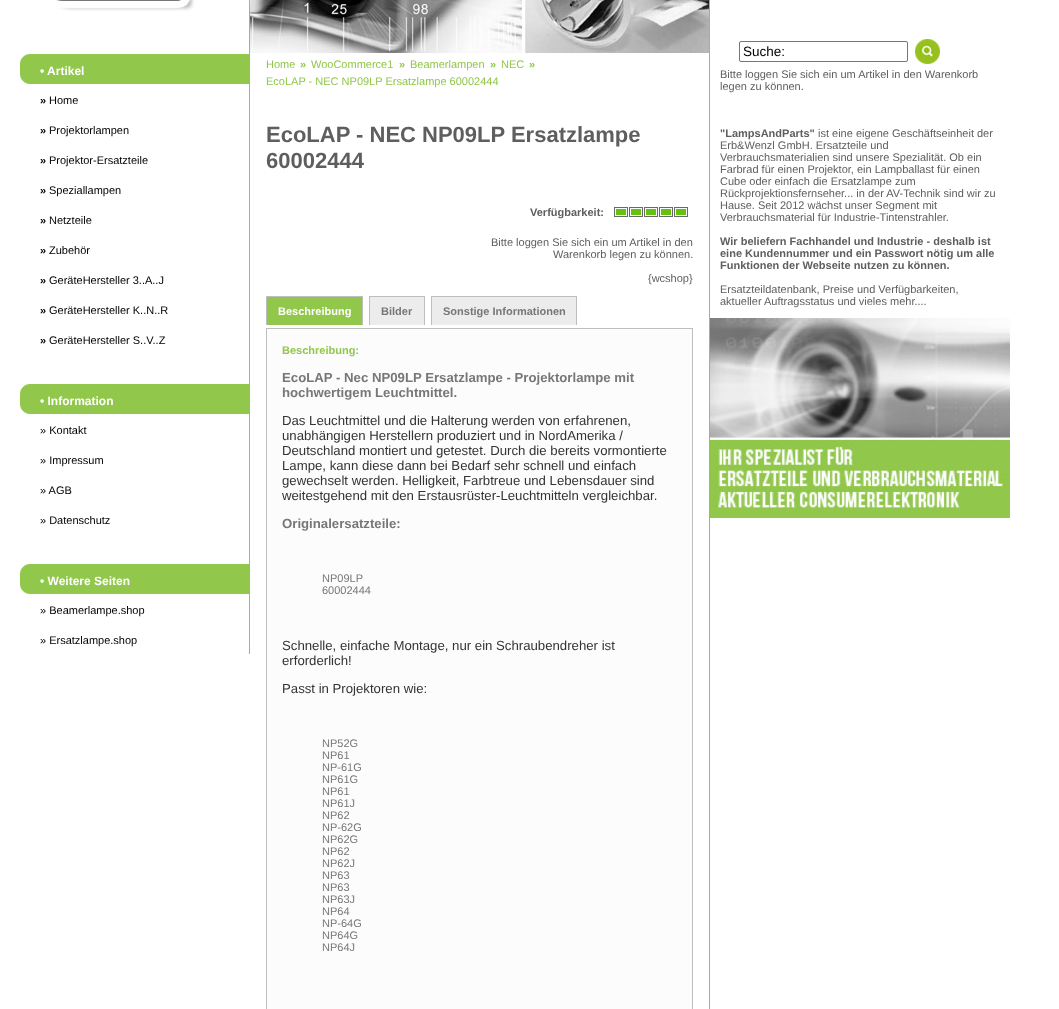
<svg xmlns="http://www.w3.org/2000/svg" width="1059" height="1009">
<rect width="100%" height="100%" fill="#fff"/>
<rect x="249" width="1" height="654" fill="#91c74a"/>
<image x="56" y="0" width="139" height="11" href="media/1.png"/>
<path d="M30 54h219v30h-219c-5.5 0-10-4.5-10-10v-10c0-5.5 4.5-10 10-10z" fill="#91c74a"/>
<text x="40" y="75" style="font-family:Liberation Sans;font-size:12px;font-weight:bold;fill:#fff">• Artikel</text>
<text x="40" y="104" style="font-family:Liberation Sans;font-size:11px;font-weight:bold;fill:#000">»</text>
<text x="49" y="104" style="font-family:Liberation Sans;font-size:11px;fill:#000">Home</text>
<text x="40" y="134" style="font-family:Liberation Sans;font-size:11px;font-weight:bold;fill:#000">»</text>
<text x="49" y="134" style="font-family:Liberation Sans;font-size:11px;fill:#000">Projektorlampen</text>
<text x="40" y="164" style="font-family:Liberation Sans;font-size:11px;font-weight:bold;fill:#000">»</text>
<text x="49" y="164" style="font-family:Liberation Sans;font-size:11px;fill:#000">Projektor-Ersatzteile</text>
<text x="40" y="194" style="font-family:Liberation Sans;font-size:11px;font-weight:bold;fill:#000">»</text>
<text x="49" y="194" style="font-family:Liberation Sans;font-size:11px;fill:#000">Speziallampen</text>
<text x="40" y="224" style="font-family:Liberation Sans;font-size:11px;font-weight:bold;fill:#000">»</text>
<text x="49" y="224" style="font-family:Liberation Sans;font-size:11px;fill:#000">Netzteile</text>
<text x="40" y="254" style="font-family:Liberation Sans;font-size:11px;font-weight:bold;fill:#000">»</text>
<text x="49" y="254" style="font-family:Liberation Sans;font-size:11px;fill:#000">Zubehör</text>
<text x="40" y="284" style="font-family:Liberation Sans;font-size:11px;font-weight:bold;fill:#000">»</text>
<text x="49" y="284" style="font-family:Liberation Sans;font-size:11px;fill:#000">GeräteHersteller 3..A..J</text>
<text x="40" y="314" style="font-family:Liberation Sans;font-size:11px;font-weight:bold;fill:#000">»</text>
<text x="49" y="314" style="font-family:Liberation Sans;font-size:11px;fill:#000">GeräteHersteller K..N..R</text>
<text x="40" y="344" style="font-family:Liberation Sans;font-size:11px;font-weight:bold;fill:#000">»</text>
<text x="49" y="344" style="font-family:Liberation Sans;font-size:11px;fill:#000">GeräteHersteller S..V..Z</text>
<path d="M30 384h219v30h-219c-5.5 0-10-4.5-10-10v-10c0-5.5 4.5-10 10-10z" fill="#91c74a"/>
<text x="40" y="405" style="font-family:Liberation Sans;font-size:12px;font-weight:bold;fill:#fff">• Information</text>
<text x="40" y="434" style="font-family:Liberation Sans;font-size:11px;fill:#000">» Kontakt</text>
<text x="40" y="464" style="font-family:Liberation Sans;font-size:11px;fill:#000">» Impressum</text>
<text x="40" y="494" style="font-family:Liberation Sans;font-size:11px;fill:#000">» AGB</text>
<text x="40" y="524" style="font-family:Liberation Sans;font-size:11px;fill:#000">» Datenschutz</text>
<path d="M30 564h219v30h-219c-5.5 0-10-4.5-10-10v-10c0-5.5 4.5-10 10-10z" fill="#91c74a"/>
<text x="40" y="585" style="font-family:Liberation Sans;font-size:12px;font-weight:bold;fill:#fff">• Weitere Seiten</text>
<text x="40" y="614" style="font-family:Liberation Sans;font-size:11px;fill:#000">» Beamerlampe.shop</text>
<text x="40" y="644" style="font-family:Liberation Sans;font-size:11px;fill:#000">» Ersatzlampe.shop</text>
<rect x="709" width="1" height="1009" fill="#91c74a"/>
<image x="250" y="0" width="459" height="53" href="media/2.png"/>
<text x="266" y="68" style="font-family:Liberation Sans;font-size:11px;fill:#91c74a">Home</text>
<text x="300" y="68" style="font-family:Liberation Sans;font-size:11px;font-weight:bold;fill:#91c74a">»</text>
<text x="311" y="68" style="font-family:Liberation Sans;font-size:11px;fill:#91c74a">WooCommerce1</text>
<text x="399" y="68" style="font-family:Liberation Sans;font-size:11px;font-weight:bold;fill:#91c74a">»</text>
<text x="410" y="68" style="font-family:Liberation Sans;font-size:11px;fill:#91c74a">Beamerlampen</text>
<text x="490" y="68" style="font-family:Liberation Sans;font-size:11px;font-weight:bold;fill:#91c74a">»</text>
<text x="501" y="68" style="font-family:Liberation Sans;font-size:11px;fill:#91c74a">NEC</text>
<text x="529" y="68" style="font-family:Liberation Sans;font-size:11px;font-weight:bold;fill:#91c74a">»</text>
<text x="266" y="85" style="font-family:Liberation Sans;font-size:11px;fill:#91c74a">EcoLAP - NEC NP09LP Ersatzlampe 60002444</text>
<text x="266" y="142" style="font-family:Liberation Sans;font-size:22px;font-weight:bold;fill:#5e5e5e">EcoLAP - NEC NP09LP Ersatzlampe</text>
<text x="266" y="168" style="font-family:Liberation Sans;font-size:22px;font-weight:bold;fill:#5e5e5e">60002444</text>
<text x="530" y="216" style="font-family:Liberation Sans;font-size:11px;font-weight:bold;fill:#5e5e5e">Verfügbarkeit:</text>
<image x="614" y="207" width="74" height="10" href="media/3.png"/>
<text x="491" y="246" style="font-family:Liberation Sans;font-size:11px;fill:#5e5e5e">Bitte loggen Sie sich ein um Artikel in den</text>
<text x="553" y="258" style="font-family:Liberation Sans;font-size:11px;fill:#5e5e5e">Warenkorb legen zu können.</text>
<text x="648" y="282" style="font-family:Liberation Sans;font-size:11px;fill:#5e5e5e">{wcshop}</text>
<rect x="267" y="297" width="95" height="28" fill="#91c74a"/>
<rect x="266" y="296" width="97" height="1" fill="#bebebe"/>
<rect x="362" y="296" width="1" height="29" fill="#bebebe"/>
<rect x="266" y="296" width="1" height="29" fill="#bebebe"/>
<text x="278" y="315" style="font-family:Liberation Sans;font-size:11px;font-weight:bold;fill:#fff">Beschreibung</text>
<rect x="370" y="297" width="54" height="28" fill="#ececec"/>
<rect x="369" y="296" width="56" height="1" fill="#bebebe"/>
<rect x="424" y="296" width="1" height="29" fill="#bebebe"/>
<rect x="369" y="296" width="1" height="29" fill="#bebebe"/>
<text x="381" y="315" style="font-family:Liberation Sans;font-size:11px;font-weight:bold;fill:#777">Bilder</text>
<rect x="432" y="297" width="144" height="28" fill="#ececec"/>
<rect x="431" y="296" width="146" height="1" fill="#bebebe"/>
<rect x="576" y="296" width="1" height="29" fill="#bebebe"/>
<rect x="431" y="296" width="1" height="29" fill="#bebebe"/>
<text x="443" y="315" style="font-family:Liberation Sans;font-size:11px;font-weight:bold;fill:#777">Sonstige Informationen</text>
<rect x="266.5" y="328.5" width="426" height="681" fill="#fcfcfc" stroke="#bebebe"/>
<text x="282" y="354" style="font-family:Liberation Sans;font-size:11px;font-weight:bold;fill:#91c74a">Beschreibung:</text>
<text x="282" y="382" style="font-family:Liberation Sans;font-size:13.2px;font-weight:bold;fill:#777">EcoLAP - Nec NP09LP Ersatzlampe - Projektorlampe mit</text>
<text x="282" y="397" style="font-family:Liberation Sans;font-size:13.2px;font-weight:bold;fill:#777">hochwertigem Leuchtmittel.</text>
<text x="282" y="425" style="font-family:Liberation Sans;font-size:13.2px;fill:#333">Das Leuchtmittel und die Halterung werden von erfahrenen,</text>
<text x="282" y="440" style="font-family:Liberation Sans;font-size:13.2px;fill:#333">unabhängigen Herstellern produziert und in NordAmerika /</text>
<text x="282" y="455" style="font-family:Liberation Sans;font-size:13.2px;fill:#333">Deutschland montiert und getestet. Durch die bereits vormontierte</text>
<text x="282" y="470" style="font-family:Liberation Sans;font-size:13.2px;fill:#333">Lampe, kann diese dann bei Bedarf sehr schnell und einfach</text>
<text x="282" y="485" style="font-family:Liberation Sans;font-size:13.2px;fill:#333">gewechselt werden. Helligkeit, Farbtreue und Lebensdauer sind</text>
<text x="282" y="500" style="font-family:Liberation Sans;font-size:13.2px;fill:#333">weitestgehend mit den Erstausrüster-Leuchtmitteln vergleichbar.</text>
<text x="282" y="528" style="font-family:Liberation Sans;font-size:13.2px;font-weight:bold;fill:#777">Originalersatzteile:</text>
<text x="322" y="582" style="font-family:Liberation Sans;font-size:11px;fill:#777">NP09LP</text>
<text x="322" y="594" style="font-family:Liberation Sans;font-size:11px;fill:#777">60002444</text>
<text x="282" y="650" style="font-family:Liberation Sans;font-size:13.2px;fill:#333">Schnelle, einfache Montage, nur ein Schraubendreher ist</text>
<text x="282" y="665" style="font-family:Liberation Sans;font-size:13.2px;fill:#333">erforderlich!</text>
<text x="282" y="693" style="font-family:Liberation Sans;font-size:13.2px;fill:#333">Passt in Projektoren wie:</text>
<text x="322" y="747" style="font-family:Liberation Sans;font-size:11px;fill:#777">NP52G</text>
<text x="322" y="759" style="font-family:Liberation Sans;font-size:11px;fill:#777">NP61</text>
<text x="322" y="771" style="font-family:Liberation Sans;font-size:11px;fill:#777">NP-61G</text>
<text x="322" y="783" style="font-family:Liberation Sans;font-size:11px;fill:#777">NP61G</text>
<text x="322" y="795" style="font-family:Liberation Sans;font-size:11px;fill:#777">NP61</text>
<text x="322" y="807" style="font-family:Liberation Sans;font-size:11px;fill:#777">NP61J</text>
<text x="322" y="819" style="font-family:Liberation Sans;font-size:11px;fill:#777">NP62</text>
<text x="322" y="831" style="font-family:Liberation Sans;font-size:11px;fill:#777">NP-62G</text>
<text x="322" y="843" style="font-family:Liberation Sans;font-size:11px;fill:#777">NP62G</text>
<text x="322" y="855" style="font-family:Liberation Sans;font-size:11px;fill:#777">NP62</text>
<text x="322" y="867" style="font-family:Liberation Sans;font-size:11px;fill:#777">NP62J</text>
<text x="322" y="879" style="font-family:Liberation Sans;font-size:11px;fill:#777">NP63</text>
<text x="322" y="891" style="font-family:Liberation Sans;font-size:11px;fill:#777">NP63</text>
<text x="322" y="903" style="font-family:Liberation Sans;font-size:11px;fill:#777">NP63J</text>
<text x="322" y="915" style="font-family:Liberation Sans;font-size:11px;fill:#777">NP64</text>
<text x="322" y="927" style="font-family:Liberation Sans;font-size:11px;fill:#777">NP-64G</text>
<text x="322" y="939" style="font-family:Liberation Sans;font-size:11px;fill:#777">NP64G</text>
<text x="322" y="951" style="font-family:Liberation Sans;font-size:11px;fill:#777">NP64J</text>
<rect x="739.5" y="41.5" width="168" height="20" rx="1.5" fill="none" stroke="#767676"/>
<text x="743" y="56" style="font-family:Liberation Sans;font-size:13.5px;fill:#000">Suche:</text>
<image x="915" y="39" width="25" height="25" href="media/4.png"/>
<text x="720" y="78" style="font-family:Liberation Sans;font-size:11px;fill:#5e5e5e">Bitte loggen Sie sich ein um Artikel in den Warenkorb</text>
<text x="720" y="90" style="font-family:Liberation Sans;font-size:11px;fill:#5e5e5e">legen zu können.</text>
<text x="720" y="137" style="font-family:Liberation Sans;font-size:11px;font-weight:bold;fill:#5e5e5e">"LampsAndParts"</text>
<text x="818" y="137" style="font-family:Liberation Sans;font-size:11px;fill:#5e5e5e">ist eine eigene Geschäftseinheit der</text>
<text x="720" y="149" style="font-family:Liberation Sans;font-size:11px;fill:#5e5e5e">Erb&amp;Wenzl GmbH. Ersatzteile und</text>
<text x="720" y="161" style="font-family:Liberation Sans;font-size:11px;fill:#5e5e5e">Verbrauchsmaterialien sind unsere Spezialität. Ob ein</text>
<text x="720" y="173" style="font-family:Liberation Sans;font-size:11px;fill:#5e5e5e">Farbrad für einen Projektor, ein Lampballast für einen</text>
<text x="720" y="185" style="font-family:Liberation Sans;font-size:11px;fill:#5e5e5e">Cube oder einfach die Ersatzlampe zum</text>
<text x="720" y="197" style="font-family:Liberation Sans;font-size:11px;fill:#5e5e5e">Rückprojektionsfernseher... in der AV-Technik sind wir zu</text>
<text x="720" y="209" style="font-family:Liberation Sans;font-size:11px;fill:#5e5e5e">Hause. Seit 2012 wächst unser Segment mit</text>
<text x="720" y="221" style="font-family:Liberation Sans;font-size:11px;fill:#5e5e5e">Verbrauchsmaterial für Industrie-Tintenstrahler.</text>
<text x="720" y="245" style="font-family:Liberation Sans;font-size:11px;font-weight:bold;fill:#5e5e5e">Wir beliefern Fachhandel und Industrie - deshalb ist</text>
<text x="720" y="257" style="font-family:Liberation Sans;font-size:11px;font-weight:bold;fill:#5e5e5e">eine Kundennummer und ein Passwort nötig um alle</text>
<text x="720" y="269" style="font-family:Liberation Sans;font-size:11px;font-weight:bold;fill:#5e5e5e">Funktionen der Webseite nutzen zu können.</text>
<text x="720" y="293" style="font-family:Liberation Sans;font-size:11px;fill:#5e5e5e">Ersatzteildatenbank, Preise und Verfügbarkeiten,</text>
<text x="720" y="305" style="font-family:Liberation Sans;font-size:11px;fill:#5e5e5e">aktueller Auftragsstatus und vieles mehr....</text>
<image x="710" y="318" width="300" height="200" href="media/5.png"/>
</svg>
